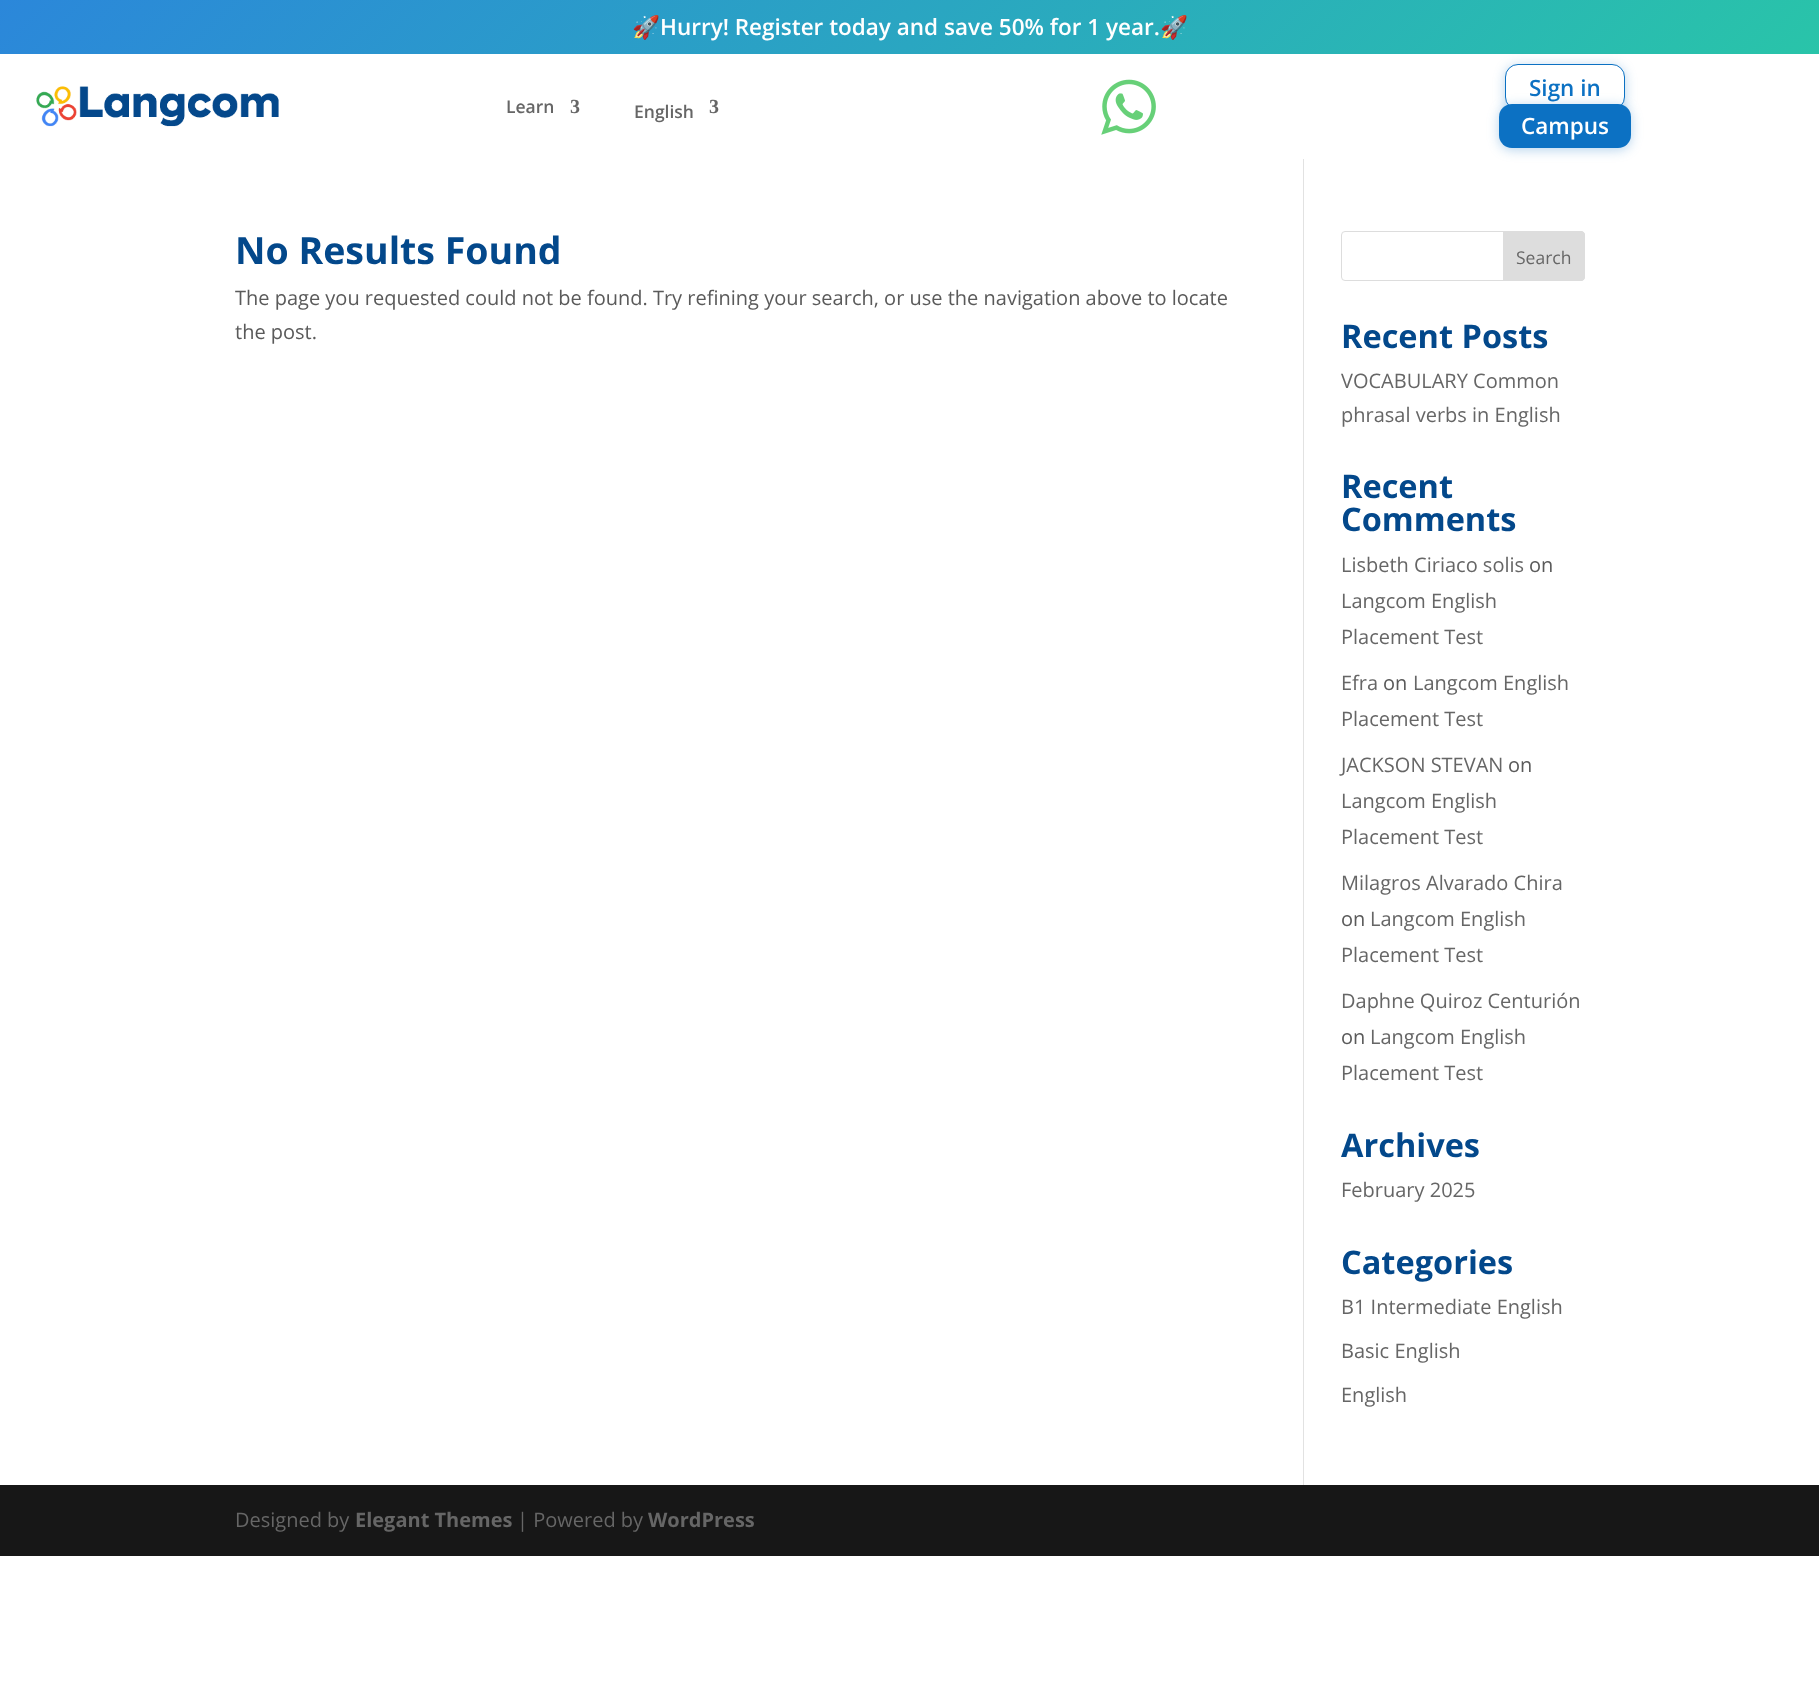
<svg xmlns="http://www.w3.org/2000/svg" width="1819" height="1695">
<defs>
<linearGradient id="g1" gradientUnits="userSpaceOnUse" x1="442" y1="-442" x2="1378" y2="495"><stop offset="0" stop-color="#2b87da"/><stop offset="1" stop-color="#29c4a9"/></linearGradient>
</defs>
<rect width="100%" height="100%" fill="#fff"/>
<rect width="1819" height="54" fill="url(#g1)"/>
<text x="632" y="35" style="font-family:Noto Color Emoji;font-size:22.5px;font-weight:bold;fill:#fff">🚀</text>
<text x="660" y="35" style="font-family:Open Sans;font-size:22.5px;font-weight:600;fill:#fff">Hurry! Register today and save 50% for 1 year.</text>
<text x="1160" y="35" style="font-family:Noto Color Emoji;font-size:22.5px;font-weight:bold;fill:#fff">🚀</text>
<image x="36" y="86" width="243" height="41" href="media/1.png"/>
<text x="506" y="113" style="font-family:Open Sans;font-size:17.5px;font-weight:600;fill:#666">Learn</text>
<text x="570" y="113" style="font-family:Liberation Serif;font-size:20px;font-weight:bold;fill:#666">3</text>
<text x="634" y="118" style="font-family:Open Sans;font-size:17.5px;font-weight:600;fill:#666">English</text>
<text x="709" y="113" style="font-family:Liberation Serif;font-size:20px;font-weight:bold;fill:#666">3</text>
<image x="1101" y="79" width="55" height="56" href="media/2.png"/>
<rect x="1505" y="66" width="120" height="47" rx="13" fill="#0c71c34d" filter="blur(6px)"/>
<rect x="1505.5" y="64.5" width="119" height="45" rx="12.5" fill="#fff" stroke="#0c71c3"/>
<text x="1529" y="96" style="font-family:Open Sans;font-size:22.5px;font-weight:600;fill:#0c71c3">Sign in</text>
<rect x="1499" y="106" width="132" height="44" rx="13" fill="#0c71c34d" filter="blur(6px)"/>
<rect x="1499" y="104" width="132" height="44" rx="13" fill="#0c71c3"/>
<text x="1521" y="134" style="font-family:Open Sans;font-size:22.5px;font-weight:600;fill:#fff">Campus</text>
<rect x="1303" y="159" width="1" height="1326" fill="#e2e2e2"/>
<text x="235" y="264" style="font-family:Open Sans;font-size:37.5px;font-weight:bold;fill:#03488b">No Results Found</text>
<text x="235" y="305" style="font-family:Open Sans;font-size:20px;fill:#5a5a5a">The page you requested could not be found. Try refining your search, or use the navigation above to locate</text>
<text x="235" y="339" style="font-family:Open Sans;font-size:20px;fill:#5a5a5a">the post.</text>
<rect x="1341.5" y="231.5" width="243" height="49" rx="3.5" fill="none" stroke="#ddd"/>
<path d="M1503.5 231.5h77.5c2 0 3.5 1.5 3.5 3.5v42c0 2-1.5 3.5-3.5 3.5h-77.5z" fill="#ddd" stroke="#ddd"/>
<text x="1516" y="264" style="font-family:Open Sans;font-size:17.5px;fill:#666">Search</text>
<text x="1341" y="348" style="font-family:Open Sans;font-size:32.5px;font-weight:bold;fill:#03488b">Recent Posts</text>
<text x="1341" y="388" style="font-family:Open Sans;font-size:20px;fill:#666">VOCABULARY Common</text>
<text x="1341" y="422" style="font-family:Open Sans;font-size:20px;fill:#666">phrasal verbs in English</text>
<text x="1341" y="498" style="font-family:Open Sans;font-size:32.5px;font-weight:bold;fill:#03488b">Recent</text>
<text x="1341" y="531" style="font-family:Open Sans;font-size:32.5px;font-weight:bold;fill:#03488b">Comments</text>
<text x="1341" y="572" style="font-family:Open Sans;font-size:20px;fill:#666">Lisbeth Ciriaco solis</text>
<text x="1529" y="572" style="font-family:Open Sans;font-size:20px;fill:#5a5a5a">on</text>
<text x="1341" y="608" style="font-family:Open Sans;font-size:20px;fill:#666">Langcom English</text>
<text x="1341" y="644" style="font-family:Open Sans;font-size:20px;fill:#666">Placement Test</text>
<text x="1341" y="690" style="font-family:Open Sans;font-size:20px;fill:#666">Efra</text>
<text x="1383" y="690" style="font-family:Open Sans;font-size:20px;fill:#5a5a5a">on</text>
<text x="1413" y="690" style="font-family:Open Sans;font-size:20px;fill:#666">Langcom English</text>
<text x="1341" y="726" style="font-family:Open Sans;font-size:20px;fill:#666">Placement Test</text>
<text x="1341" y="772" style="font-family:Open Sans;font-size:20px;fill:#666">JACKSON STEVAN</text>
<text x="1508" y="772" style="font-family:Open Sans;font-size:20px;fill:#5a5a5a">on</text>
<text x="1341" y="808" style="font-family:Open Sans;font-size:20px;fill:#666">Langcom English</text>
<text x="1341" y="844" style="font-family:Open Sans;font-size:20px;fill:#666">Placement Test</text>
<text x="1341" y="890" style="font-family:Open Sans;font-size:20px;fill:#666">Milagros Alvarado Chira</text>
<text x="1341" y="926" style="font-family:Open Sans;font-size:20px;fill:#5a5a5a">on</text>
<text x="1370" y="926" style="font-family:Open Sans;font-size:20px;fill:#666">Langcom English</text>
<text x="1341" y="962" style="font-family:Open Sans;font-size:20px;fill:#666">Placement Test</text>
<text x="1341" y="1008" style="font-family:Open Sans;font-size:20px;fill:#666">Daphne Quiroz Centurión</text>
<text x="1341" y="1044" style="font-family:Open Sans;font-size:20px;fill:#5a5a5a">on</text>
<text x="1370" y="1044" style="font-family:Open Sans;font-size:20px;fill:#666">Langcom English</text>
<text x="1341" y="1080" style="font-family:Open Sans;font-size:20px;fill:#666">Placement Test</text>
<text x="1341" y="1157" style="font-family:Open Sans;font-size:32.5px;font-weight:bold;fill:#03488b">Archives</text>
<text x="1341" y="1197" style="font-family:Open Sans;font-size:20px;fill:#666">February 2025</text>
<text x="1341" y="1274" style="font-family:Open Sans;font-size:32.5px;font-weight:bold;fill:#03488b">Categories</text>
<text x="1341" y="1314" style="font-family:Open Sans;font-size:20px;fill:#666">B1 Intermediate English</text>
<text x="1341" y="1358" style="font-family:Open Sans;font-size:20px;fill:#666">Basic English</text>
<text x="1341" y="1402" style="font-family:Open Sans;font-size:20px;fill:#666">English</text>
<rect y="1485" width="1819" height="71" fill="#171717"/>
<text x="235" y="1527" style="font-family:Open Sans;font-size:20px;fill:#666">Designed by</text>
<text x="355" y="1527" style="font-family:Open Sans;font-size:20px;font-weight:bold;fill:#666">Elegant Themes</text>
<text x="517" y="1527" style="font-family:Open Sans;font-size:20px;fill:#666">| Powered by</text>
<text x="648" y="1527" style="font-family:Open Sans;font-size:20px;font-weight:bold;fill:#666">WordPress</text>
</svg>
